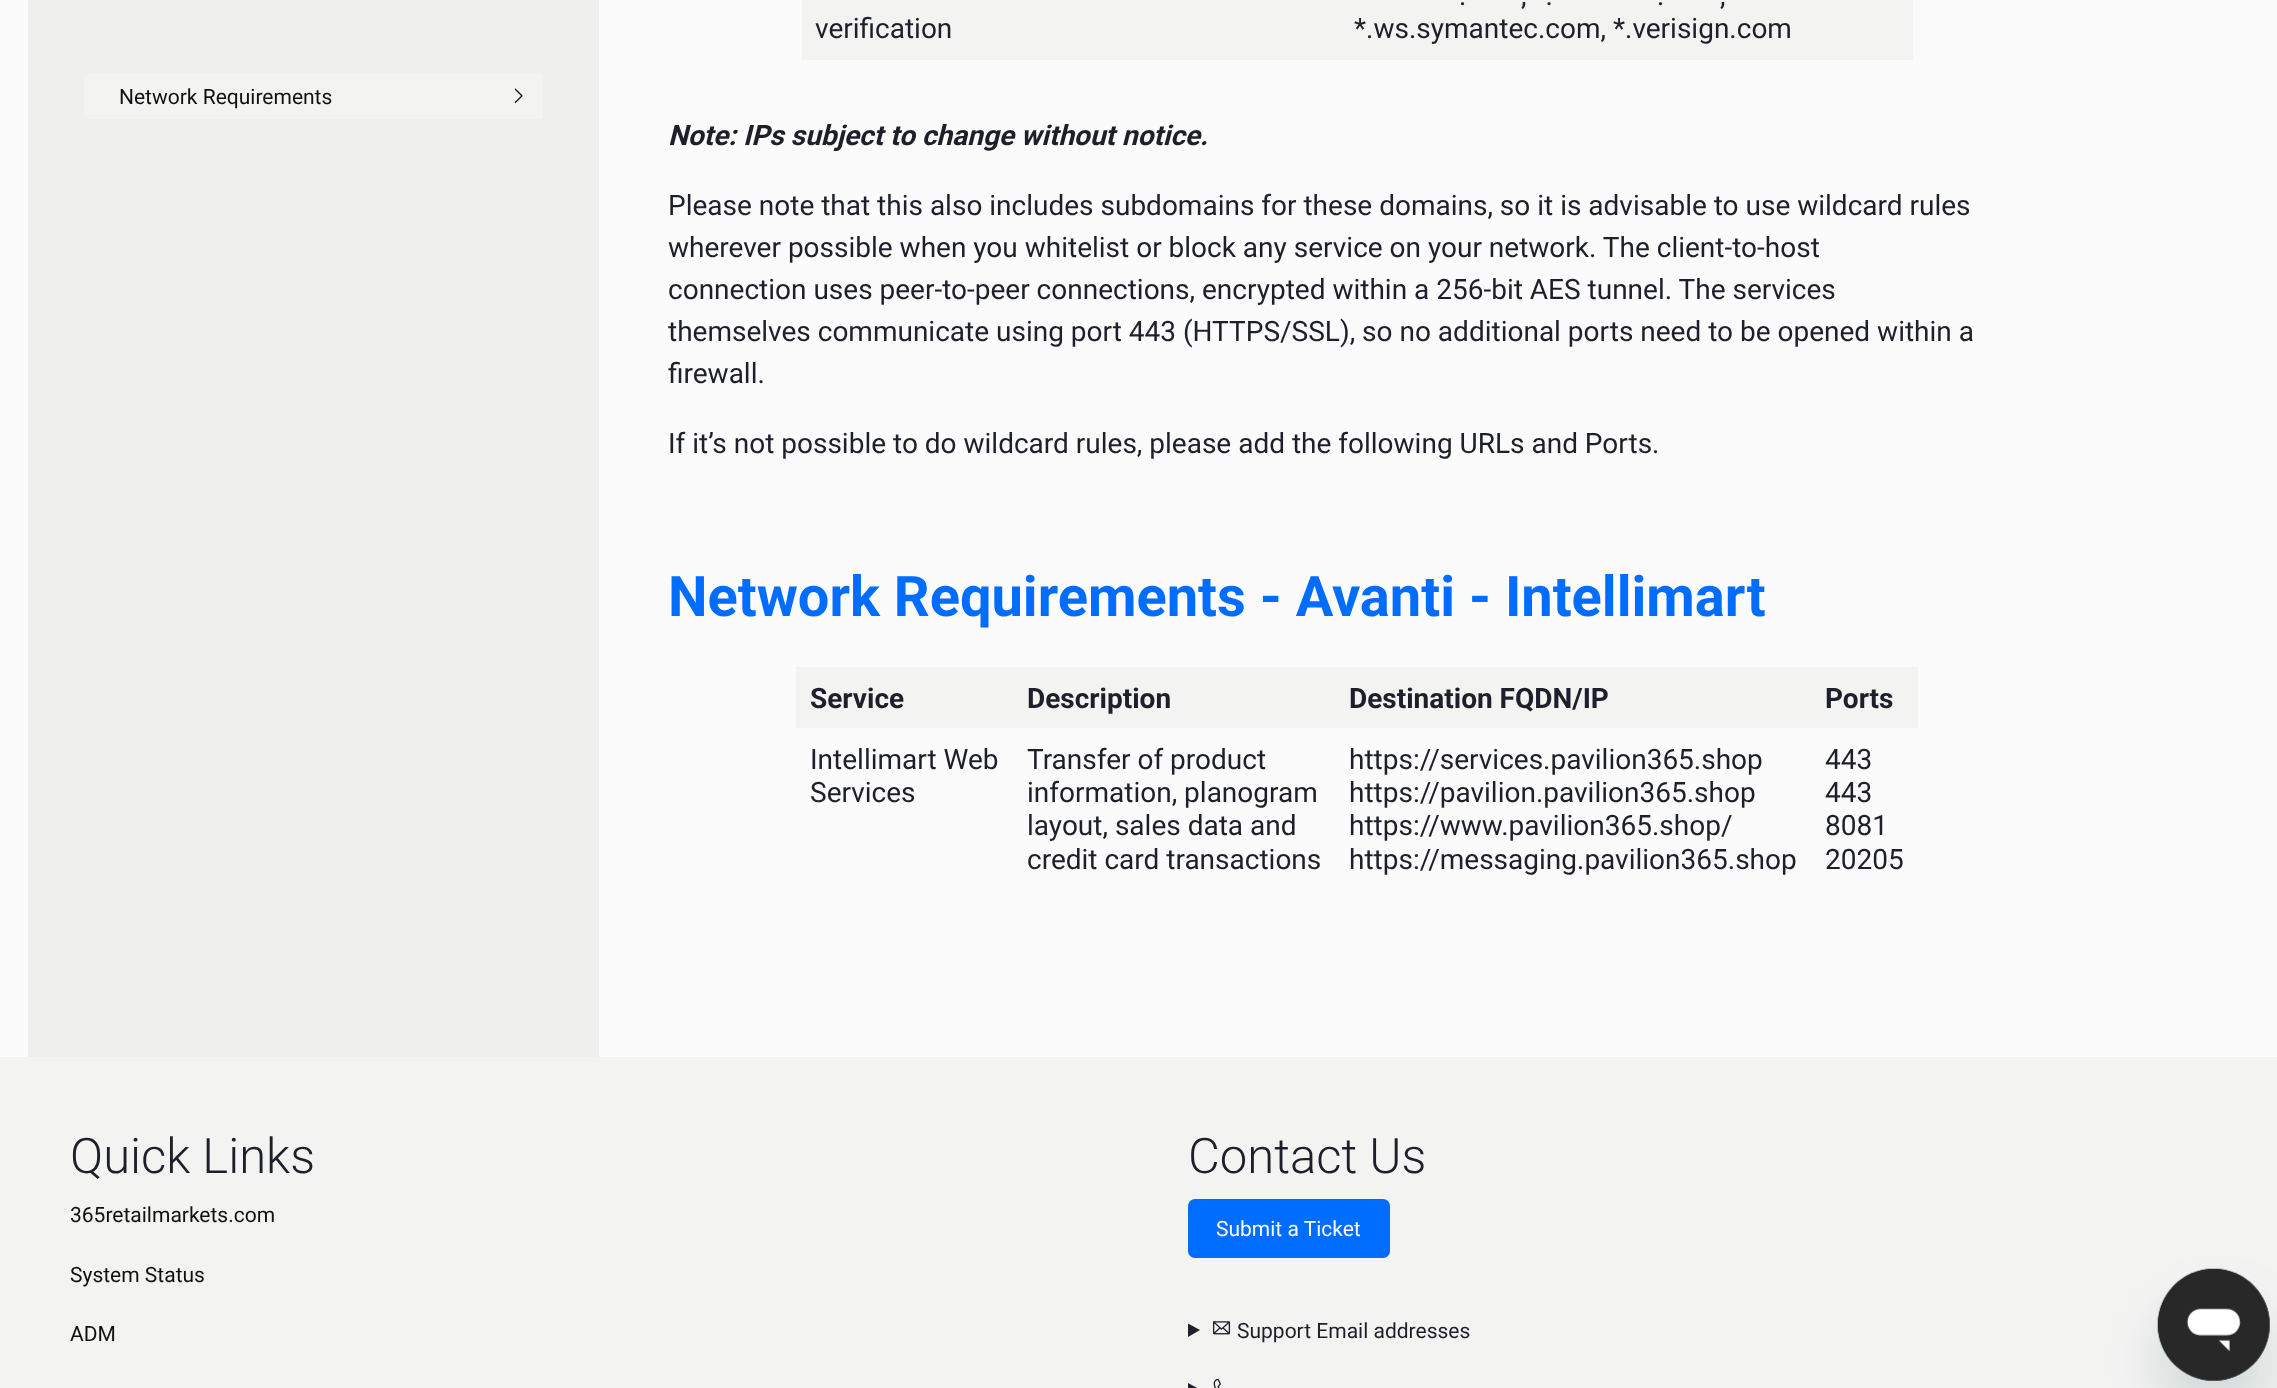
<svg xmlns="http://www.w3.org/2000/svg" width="2277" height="1388">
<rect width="100%" height="100%" fill="#fbfbfb"/>
<rect x="28" width="571" height="1057" fill="#efefee"/>
<rect x="84" y="74" width="459" height="45" rx="4" fill="#f3f3f2"/>
<text x="119" y="104" style="font-family:Roboto;font-size:21px;fill:#111">Network Requirements</text>
<image x="514" y="88" width="9" height="15" href="media/1.png"/>
<rect x="802" width="1111" height="60" fill="#f3f3f2"/>
<text x="815" y="38" style="font-family:Roboto;font-size:28px;fill:#1d1f2a">verification</text>
<text x="1459" y="5" style="font-family:Roboto;font-size:28px;fill:#1d1f2a">.</text>
<text x="1521" y="5" style="font-family:Roboto;font-size:28px;fill:#1d1f2a">, *.</text>
<text x="1657" y="5" style="font-family:Roboto;font-size:28px;fill:#1d1f2a">.</text>
<text x="1720" y="5" style="font-family:Roboto;font-size:28px;fill:#1d1f2a">,</text>
<text x="1354" y="38" style="font-family:Roboto;font-size:28px;fill:#1d1f2a">*.ws.symantec.com, *.verisign.com</text>
<text x="668" y="145" style="font-family:Roboto;font-size:28px;font-weight:bold;font-style:italic;fill:#1d1f2a">Note: IPs subject to change without notice.</text>
<text x="668" y="215" style="font-family:Roboto;font-size:28px;fill:#1d1f2a">Please note that this also includes subdomains for these domains, so it is advisable to use wildcard rules</text>
<text x="668" y="257" style="font-family:Roboto;font-size:28px;fill:#1d1f2a">wherever possible when you whitelist or block any service on your network. The client-to-host</text>
<text x="668" y="299" style="font-family:Roboto;font-size:28px;fill:#1d1f2a">connection uses peer-to-peer connections, encrypted within a 256-bit AES tunnel. The services</text>
<text x="668" y="341" style="font-family:Roboto;font-size:28px;fill:#1d1f2a">themselves communicate using port 443 (HTTPS/SSL), so no additional ports need to be opened within a</text>
<text x="668" y="383" style="font-family:Roboto;font-size:28px;fill:#1d1f2a">firewall.</text>
<text x="668" y="453" style="font-family:Roboto;font-size:28px;fill:#1d1f2a">If it’s not possible to do wildcard rules, please add the following URLs and Ports.</text>
<text x="668" y="616" style="font-family:Roboto;font-size:56px;font-weight:bold;fill:#006dff">Network Requirements - Avanti - Intellimart</text>
<rect x="796" y="667" width="1122" height="61" fill="#f3f3f2"/>
<text x="810" y="708" style="font-family:Roboto;font-size:28px;font-weight:bold;fill:#1d1f2a">Service</text>
<text x="1027" y="708" style="font-family:Roboto;font-size:28px;font-weight:bold;fill:#1d1f2a">Description</text>
<text x="1349" y="708" style="font-family:Roboto;font-size:28px;font-weight:bold;fill:#1d1f2a">Destination FQDN/IP</text>
<text x="1825" y="708" style="font-family:Roboto;font-size:28px;font-weight:bold;fill:#1d1f2a">Ports</text>
<text x="810" y="769" style="font-family:Roboto;font-size:28px;fill:#1d1f2a">Intellimart Web</text>
<text x="810" y="802" style="font-family:Roboto;font-size:28px;fill:#1d1f2a">Services</text>
<text x="1027" y="769" style="font-family:Roboto;font-size:28px;fill:#1d1f2a">Transfer of product</text>
<text x="1027" y="802" style="font-family:Roboto;font-size:28px;fill:#1d1f2a">information, planogram</text>
<text x="1027" y="835" style="font-family:Roboto;font-size:28px;fill:#1d1f2a">layout, sales data and</text>
<text x="1027" y="869" style="font-family:Roboto;font-size:28px;fill:#1d1f2a">credit card transactions</text>
<text x="1349" y="769" style="font-family:Roboto;font-size:28px;fill:#1d1f2a">https://services.pavilion365.shop</text>
<text x="1349" y="802" style="font-family:Roboto;font-size:28px;fill:#1d1f2a">https://pavilion.pavilion365.shop</text>
<text x="1349" y="835" style="font-family:Roboto;font-size:28px;fill:#1d1f2a">https://www.pavilion365.shop/</text>
<text x="1349" y="869" style="font-family:Roboto;font-size:28px;fill:#1d1f2a">https://messaging.pavilion365.shop</text>
<text x="1825" y="769" style="font-family:Roboto;font-size:28px;fill:#1d1f2a">443</text>
<text x="1825" y="802" style="font-family:Roboto;font-size:28px;fill:#1d1f2a">443</text>
<text x="1825" y="835" style="font-family:Roboto;font-size:28px;fill:#1d1f2a">8081</text>
<text x="1825" y="869" style="font-family:Roboto;font-size:28px;fill:#1d1f2a">20205</text>
<rect y="1057" width="2277" height="331" fill="#f3f3f2"/>
<text x="70" y="1173" style="font-family:Roboto;font-size:49px;font-weight:300;fill:#1d1f2a">Quick Links</text>
<text x="70" y="1222" style="font-family:Roboto;font-size:21px;fill:#111">365retailmarkets.com</text>
<text x="70" y="1282" style="font-family:Roboto;font-size:21px;fill:#111">System Status</text>
<text x="70" y="1341" style="font-family:Roboto;font-size:21px;fill:#111">ADM</text>
<text x="1188" y="1173" style="font-family:Roboto;font-size:49px;font-weight:300;fill:#1d1f2a">Contact Us</text>
<rect x="1188" y="1199" width="202" height="59" rx="7" fill="#006dff"/>
<text x="1216" y="1236" style="font-family:Roboto;font-size:21px;fill:#fbfbfb">Submit a Ticket</text>
<path d="M1188 1323.5l12 6.5l-12 7z" fill="#1d1f2a"/>
<image x="1212" y="1321" width="19" height="14" href="media/2.png"/>
<text x="1237" y="1338" style="font-family:Roboto;font-size:21px;fill:#1d1f2a">Support Email addresses</text>
<path d="M1188 1383l12 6.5l-12 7z" fill="#1d1f2a"/>
<image x="1213" y="1378" width="8" height="10" href="media/3.png"/>
<rect x="2158" y="1304" width="112" height="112" rx="56" fill="#17494d26" filter="blur(26px)"/>
<image x="2157" y="1268" width="113" height="113" href="media/4.png"/>
</svg>
